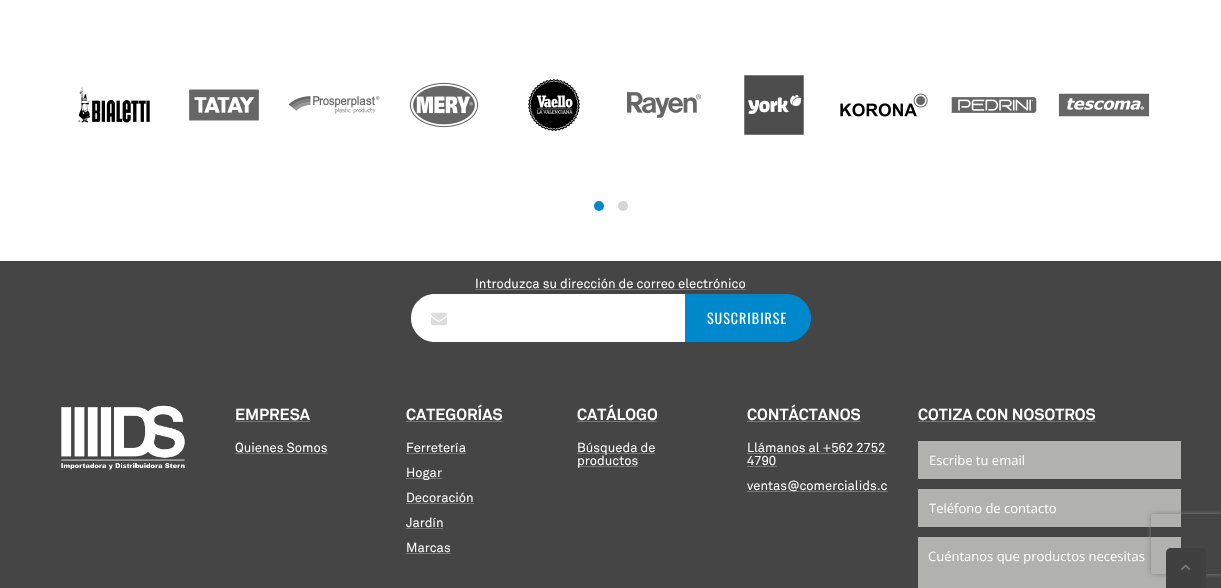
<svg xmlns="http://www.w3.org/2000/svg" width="1221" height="588">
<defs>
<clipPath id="clip1"><path d="M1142 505h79v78h-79zm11 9h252c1 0 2 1 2 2v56c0 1-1 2-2 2h-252c-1 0-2-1-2-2v-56c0-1 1-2 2-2z" clip-rule="evenodd"/></clipPath>
</defs>
<rect width="100%" height="100%" fill="#fff"/>
<image x="78" y="87" width="72" height="36" href="media/1.png"/>
<image x="189" y="89" width="70" height="32" href="media/2.png"/>
<image x="288" y="96" width="92" height="18" href="media/3.png"/>
<image x="409" y="82" width="70" height="46" href="media/4.png"/>
<image x="528" y="79" width="52" height="52" href="media/5.png"/>
<image x="627" y="92" width="74" height="26" href="media/6.png"/>
<image x="744" y="75" width="60" height="60" href="media/7.png"/>
<image x="840" y="93" width="88" height="24" href="media/8.png"/>
<image x="951" y="97" width="86" height="16" href="media/9.png"/>
<image x="1058" y="93" width="92" height="24" href="media/10.png"/>
<circle cx="599" cy="206" r="5" fill="#08c"/>
<circle cx="623" cy="206" r="5" fill="#d6d6d6"/>
<rect y="261" width="1221" height="327" fill="#454545"/>
<text x="475" y="288" style="font-family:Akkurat;font-size:13px;fill:#fff">Introduzca su dirección de correo electrónico</text>
<rect x="475" y="289" width="271" height="1" fill="#777"/>
<path d="M684.5 294.5h102.5c13 0 23.5 10.5 23.5 23.5c0 13-10.5 23.5-23.5 23.5h-102.5z" fill="#08c" stroke="#08c"/>
<path d="M435 294h250v48h-250c-13.5 0-24-10.5-24-24c0-13.5 10.5-24 24-24z" fill="#fff"/>
<image x="431" y="312" width="16" height="14" href="media/11.png"/>
<text x="707" y="324" style="font-family:Oswald;font-size:14px;letter-spacing:1px;fill:#fff">SUSCRIBIRSE</text>
<image x="61" y="405" width="124" height="65" href="media/12.png"/>
<text x="235" y="420" style="font-family:Akkurat;font-size:16px;font-weight:bold;fill:#fff">EMPRESA</text>
<rect x="235" y="421" width="75" height="1" fill="#777"/>
<text x="235" y="452" style="font-family:Akkurat;font-size:13px;fill:#fff">Quienes Somos</text>
<rect x="235" y="453" width="93" height="1" fill="#777"/>
<text x="406" y="420" style="font-family:Akkurat;font-size:16px;font-weight:bold;fill:#fff">CATEGORÍAS</text>
<rect x="406" y="421" width="97" height="1" fill="#777"/>
<text x="406" y="452" style="font-family:Akkurat;font-size:13px;fill:#fff">Ferretería</text>
<rect x="406" y="453" width="60" height="1" fill="#777"/>
<rect x="406" y="478" width="36" height="1" fill="#777"/>
<text x="406" y="477" style="font-family:Akkurat;font-size:13px;fill:#fff">Hogar</text>
<text x="406" y="502" style="font-family:Akkurat;font-size:13px;fill:#fff">Decoración</text>
<rect x="406" y="503" width="68" height="1" fill="#777"/>
<text x="406" y="527" style="font-family:Akkurat;font-size:13px;fill:#fff">Jardín</text>
<rect x="406" y="528" width="37" height="1" fill="#777"/>
<text x="406" y="552" style="font-family:Akkurat;font-size:13px;fill:#fff">Marcas</text>
<rect x="406" y="553" width="45" height="1" fill="#777"/>
<text x="577" y="420" style="font-family:Akkurat;font-size:16px;font-weight:bold;fill:#fff">CATÁLOGO</text>
<rect x="577" y="421" width="80" height="1" fill="#777"/>
<rect x="577" y="453" width="78" height="1" fill="#777"/>
<text x="577" y="452" style="font-family:Akkurat;font-size:13px;fill:#fff">Búsqueda de</text>
<rect x="577" y="466" width="61" height="1" fill="#777"/>
<text x="577" y="465" style="font-family:Akkurat;font-size:13px;fill:#fff">productos</text>
<text x="747" y="420" style="font-family:Akkurat;font-size:16px;font-weight:bold;fill:#fff">CONTÁCTANOS</text>
<rect x="747" y="421" width="114" height="1" fill="#777"/>
<text x="747" y="452" style="font-family:Akkurat;font-size:13px;fill:#fff">Llámanos al +562 2752</text>
<rect x="747" y="453" width="139" height="1" fill="#777"/>
<text x="747" y="465" style="font-family:Akkurat;font-size:13px;fill:#fff">4790</text>
<rect x="747" y="466" width="30" height="1" fill="#777"/>
<rect x="747" y="491" width="141" height="1" fill="#777"/>
<text x="747" y="490" style="font-family:Akkurat;font-size:13px;fill:#fff">ventas@comercialids.c</text>
<text x="918" y="420" style="font-family:Akkurat;font-size:16px;font-weight:bold;fill:#fff">COTIZA CON NOSOTROS</text>
<rect x="918" y="421" width="178" height="1" fill="#777"/>
<rect x="918.5" y="441.5" width="262" height="37" fill="#b1b1b0" stroke="#b1b1b0"/>
<text x="929" y="465" style="font-family:Open Sans;font-size:13px;fill:#fff">Escribe tu email</text>
<rect x="918.5" y="489.5" width="262" height="37" fill="#b1b1b0" stroke="#b1b1b0"/>
<text x="929" y="513" style="font-family:Open Sans;font-size:13px;fill:#fff">Teléfono de contacto</text>
<rect x="918.5" y="537.5" width="262" height="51" fill="#b1b1b0" stroke="#b1b1b0"/>
<text x="928" y="561" style="font-family:Open Sans;font-size:13px;fill:#fff">Cuéntanos que productos necesitas</text>
<g clip-path="url(#clip1)">
<rect x="1151" y="514" width="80" height="60" rx="2" fill="#808080" filter="blur(2.5px)"/>
</g>
<path d="M1171 548h30c3 0 5 2 5 5v35h-40v-35c0-3 2-5 5-5z" fill="#404040"/>
<image x="1181" y="564" width="10" height="6" href="media/13.png"/>
</svg>
